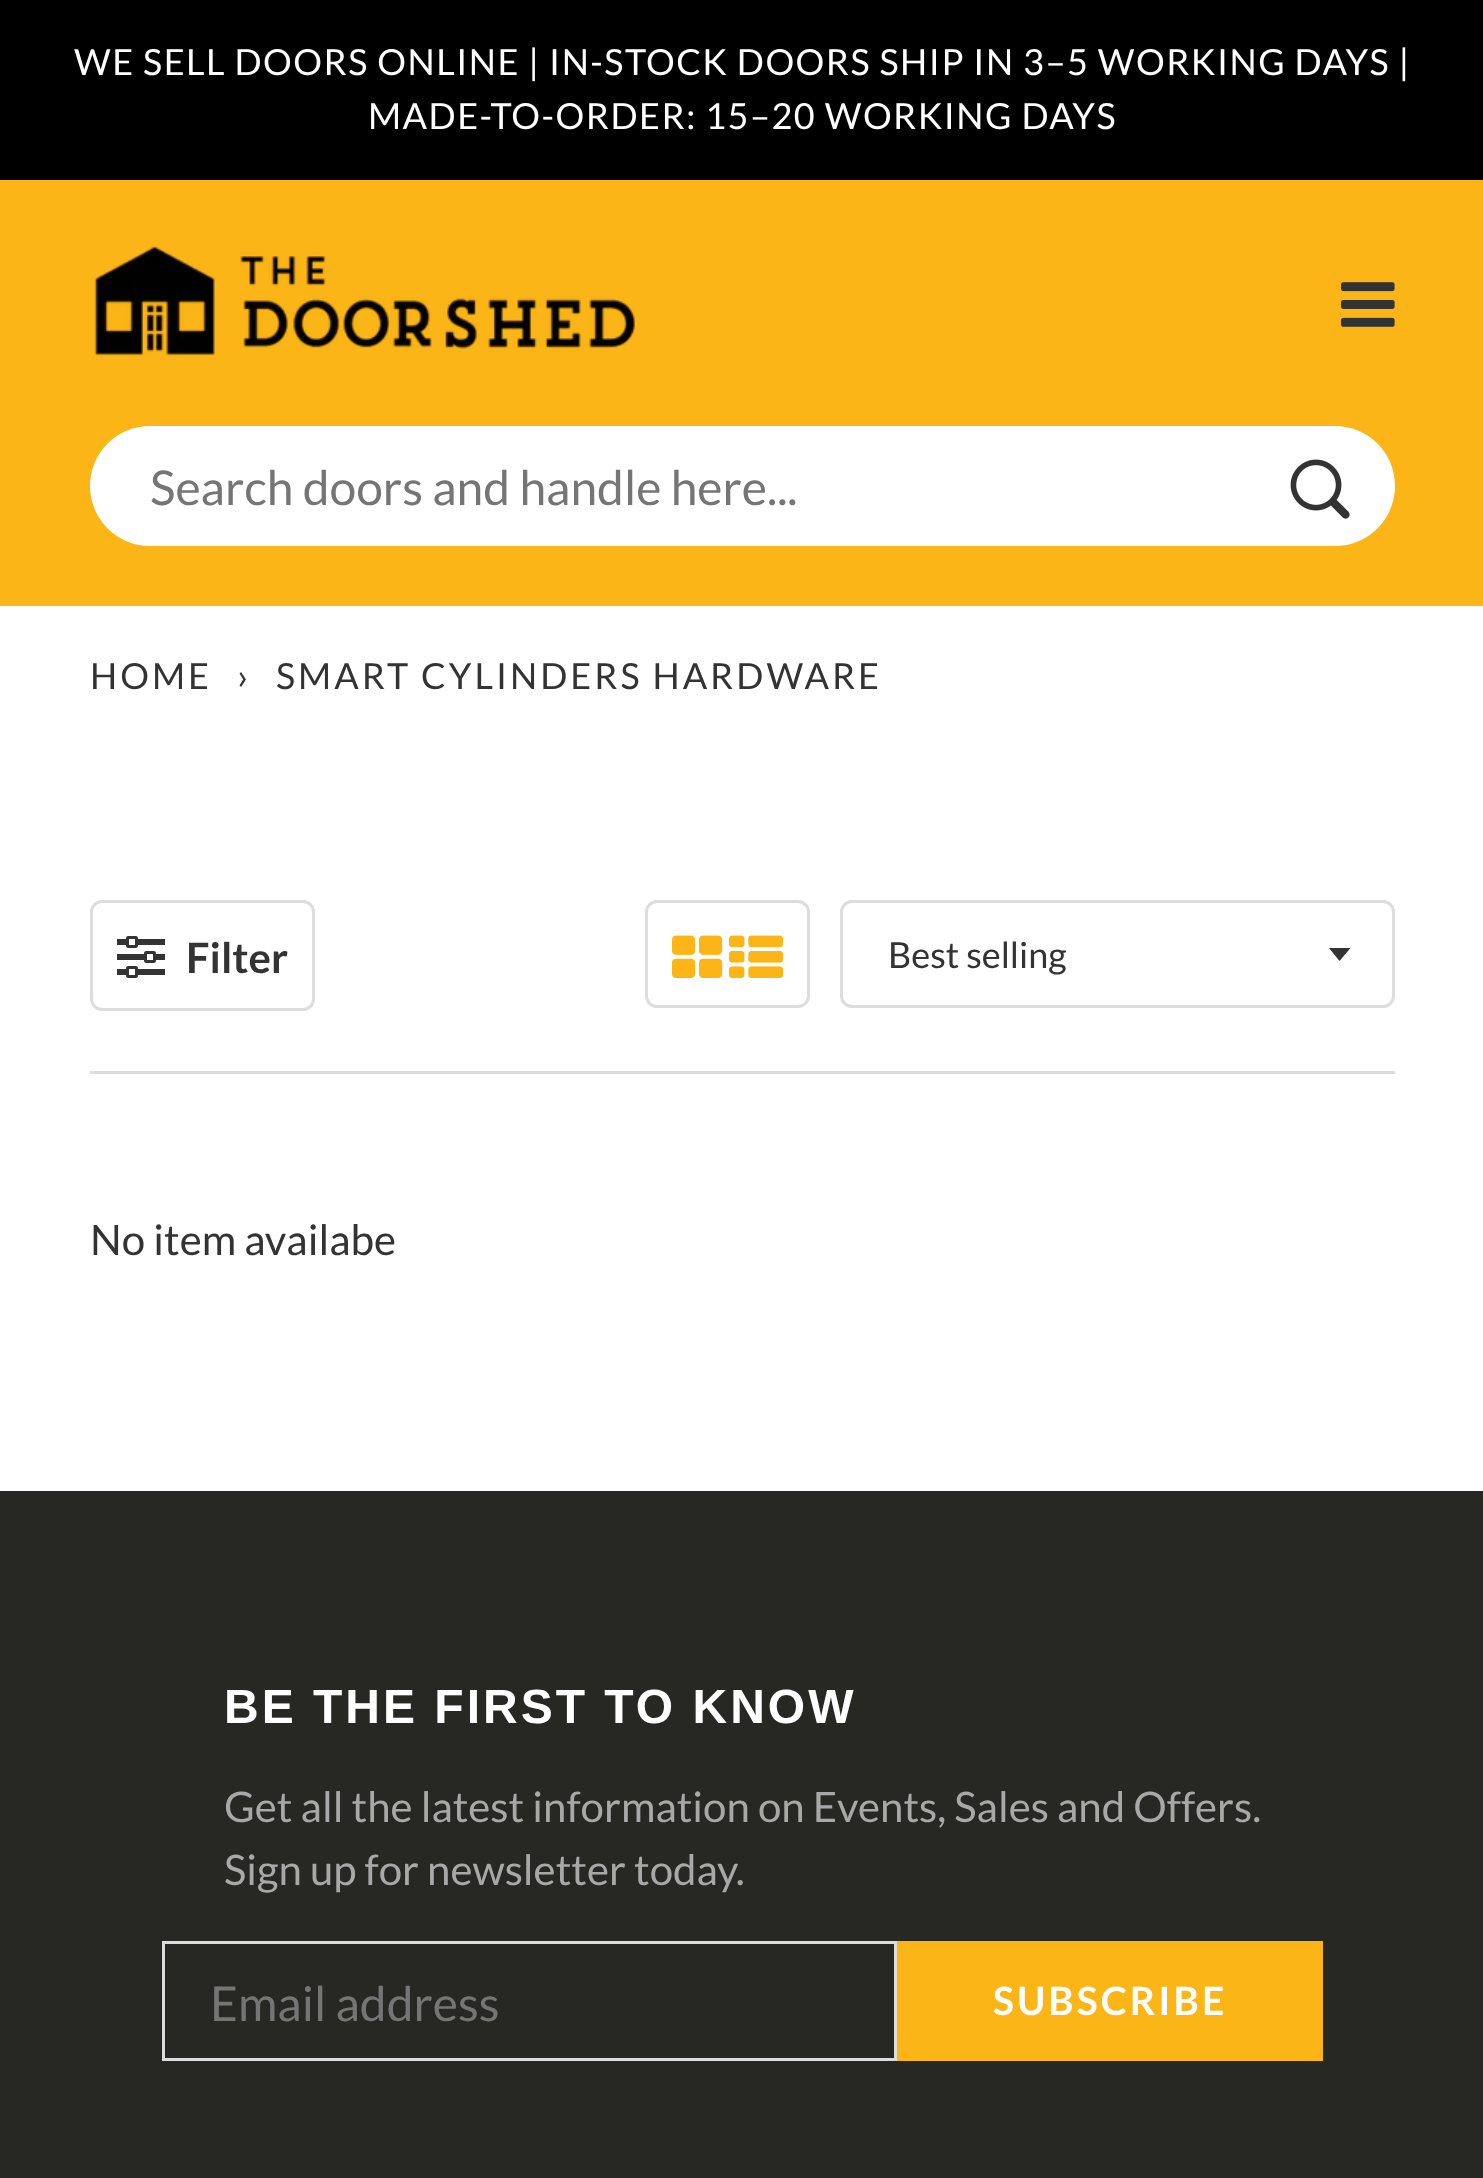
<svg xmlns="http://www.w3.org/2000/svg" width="1483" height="2178">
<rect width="100%" height="100%" fill="#fff"/>
<rect width="1483" height="180" fill="#000"/>
<text x="74" y="75" style="font-family:Lato;font-size:36px;letter-spacing:1.5px;fill:#fff">WE SELL DOORS ONLINE | IN-STOCK DOORS SHIP IN 3–5 WORKING DAYS |</text>
<text x="368" y="129" style="font-family:Lato;font-size:36px;letter-spacing:1.5px;fill:#fff">MADE-TO-ORDER: 15–20 WORKING DAYS</text>
<rect y="180" width="1483" height="426" fill="#fbb516"/>
<image x="94" y="246" width="541" height="110" href="media/1.png"/>
<image x="1341" y="282" width="54" height="45" href="media/2.png"/>
<rect x="90" y="426" width="1305" height="120" rx="60" fill="#fff"/>
<text x="150" y="505" style="font-family:Lato;font-size:48px;fill:#757575">Search doors and handle here...</text>
<image x="1290" y="459" width="60" height="60" href="media/3.png"/>
<text x="90" y="689" style="font-family:Lato;font-size:36px;letter-spacing:3px;fill:#333">HOME</text>
<text x="237" y="689" style="font-family:Lato;font-size:36px;letter-spacing:3px;fill:#333">›</text>
<text x="276" y="689" style="font-family:Lato;font-size:36px;letter-spacing:3px;fill:#333">SMART CYLINDERS HARDWARE</text>
<rect x="90" y="1071" width="1305" height="3" fill="#ddd"/>
<rect x="91.5" y="901.5" width="222" height="108" rx="10.5" fill="none" stroke="#ddd" stroke-width="3"/>
<image x="117" y="936" width="48" height="42" href="media/4.png"/>
<text x="186" y="973" style="font-family:Lato;font-size:42px;font-weight:bold;fill:#333">Filter</text>
<rect x="646.5" y="901.5" width="162" height="105" rx="10.5" fill="none" stroke="#ddd" stroke-width="3"/>
<image x="672" y="935" width="51" height="43" href="media/5.png"/>
<image x="729" y="935" width="54" height="43" href="media/6.png"/>
<path d="M1329 948l10.5 13c.5 0 9.5-11.5 11-13z" fill="#333"/>
<rect x="841.5" y="901.5" width="552" height="105" rx="10.5" fill="none" stroke="#ddd" stroke-width="3"/>
<text x="888" y="968" style="font-family:Lato;font-size:36px;fill:#333">Best selling</text>
<text x="90" y="1255" style="font-family:Lato;font-size:42px;fill:#333">No item availabe</text>
<rect y="1491" width="1483" height="687" fill="#272723"/>
<text x="224" y="1723" style="font-family:Liberation Sans;font-size:48px;font-weight:bold;letter-spacing:3px;fill:#fff">BE THE FIRST TO KNOW</text>
<text x="224" y="1822" style="font-family:Lato;font-size:42px;fill:#a8a8a8">Get all the latest information on Events, Sales and Offers.</text>
<text x="224" y="1885" style="font-family:Lato;font-size:42px;fill:#a8a8a8">Sign up for newsletter today.</text>
<rect x="163.5" y="1942.5" width="732" height="117" fill="none" stroke="#ddd" stroke-width="3"/>
<text x="210" y="2021" style="font-family:Lato;font-size:48px;fill:#757575">Email address</text>
<rect x="897" y="1941" width="426" height="120" fill="#fbb516"/>
<text x="993" y="2015" style="font-family:Lato;font-size:39px;font-weight:bold;letter-spacing:3px;fill:#fff">SUBSCRIBE</text>
</svg>
